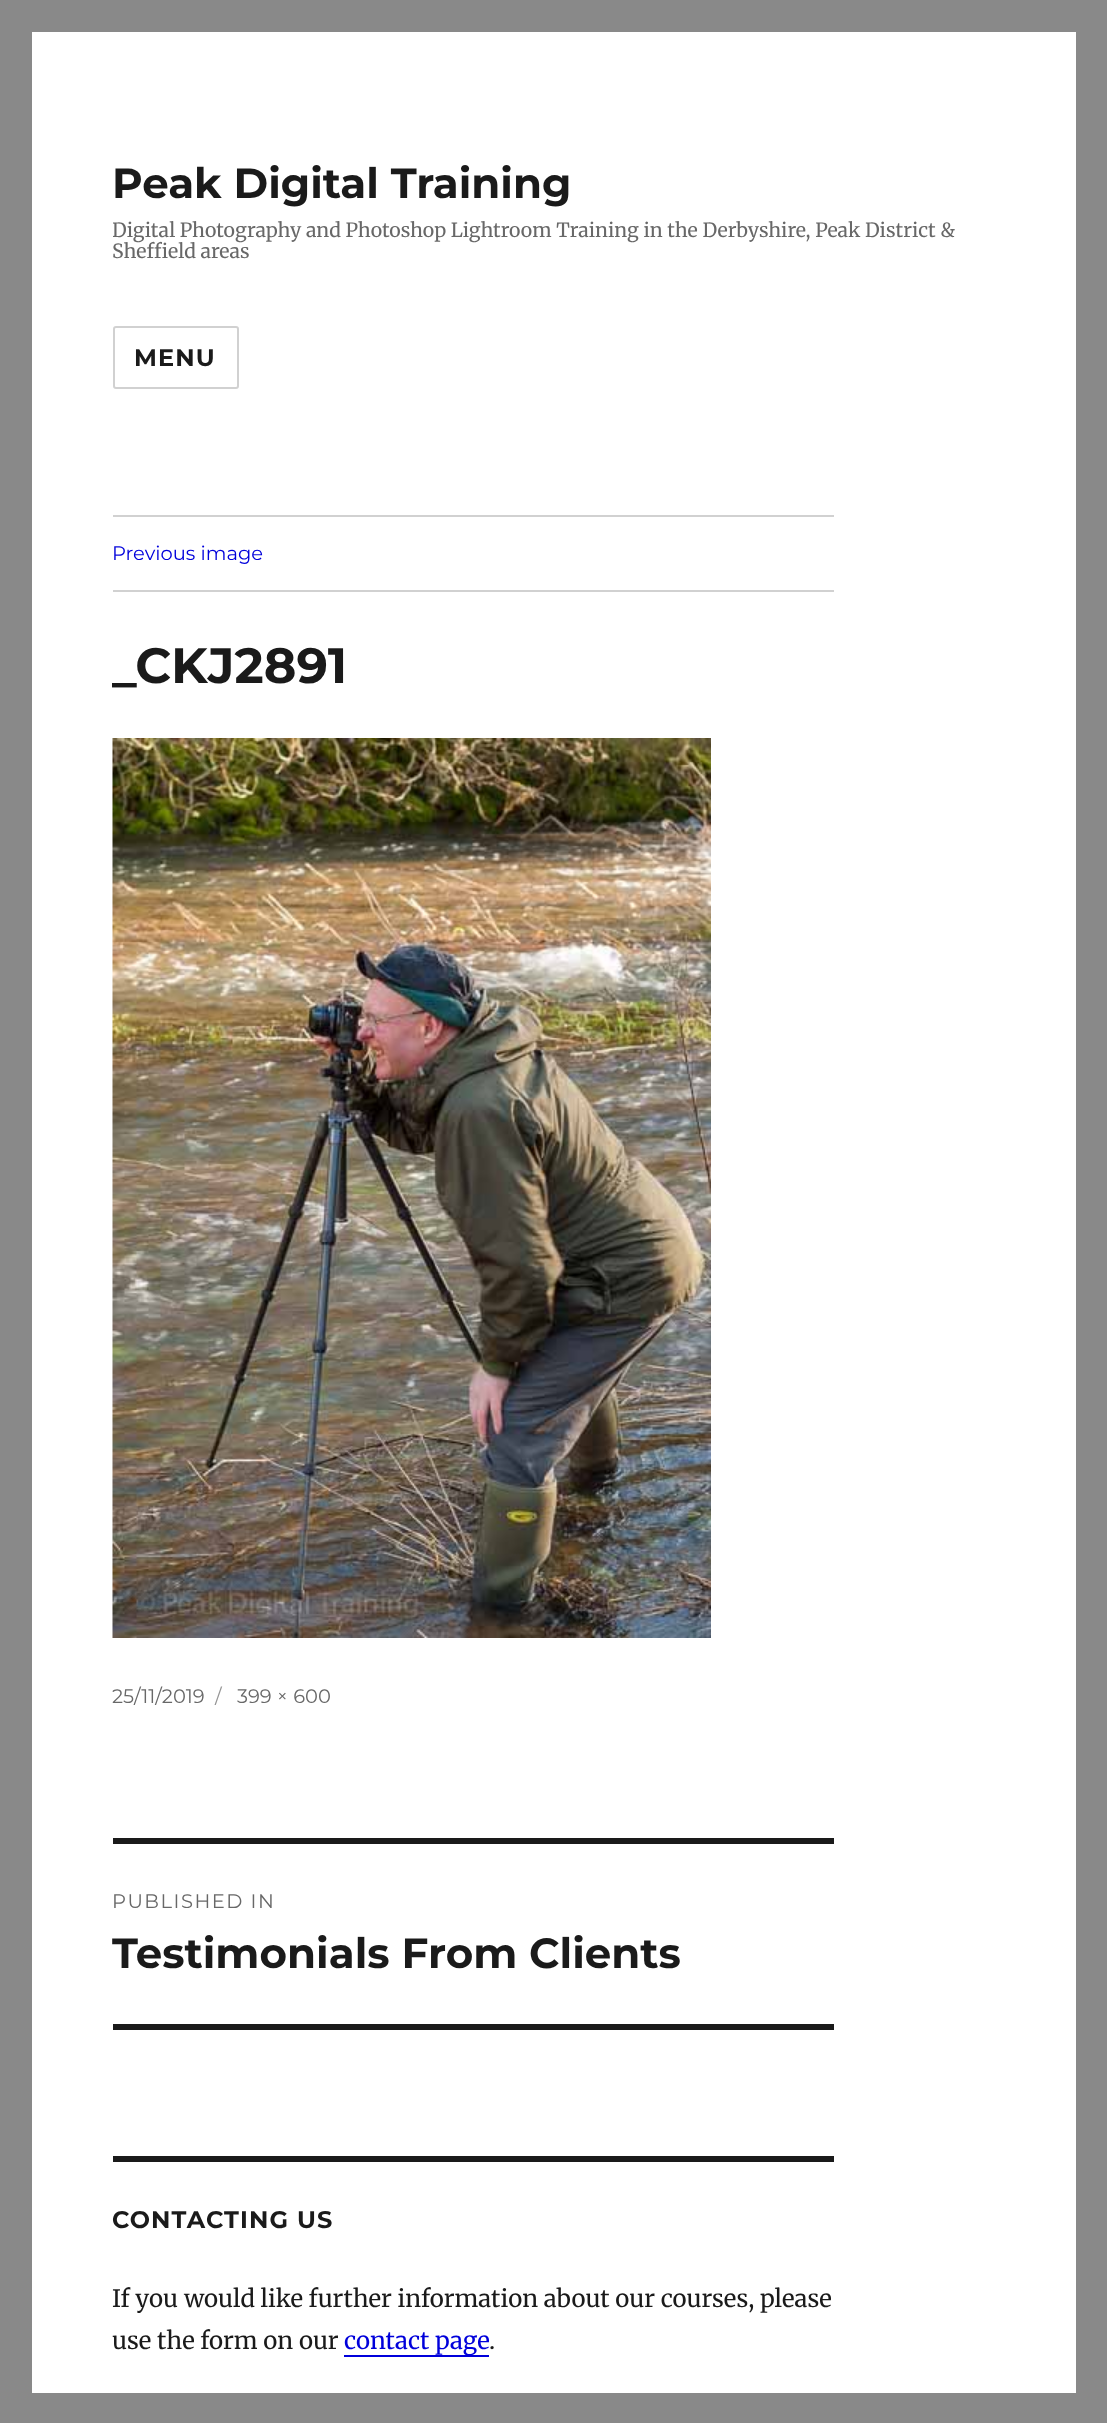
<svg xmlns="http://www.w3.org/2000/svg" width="1107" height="2423">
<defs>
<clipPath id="clip1"><rect x="113" y="158" width="882" height="105"/></clipPath>
</defs>
<rect width="100%" height="100%" fill="#898989"/>
<rect x="32" y="32" width="1044" height="2361" fill="#fff"/>
<text x="112" y="198" style="font-family:Montserrat;font-size:42px;font-weight:bold;fill:#1a1a1a">Peak Digital Training</text>
<g clip-path="url(#clip1)">
<text x="112" y="237" style="font-family:Merriweather;font-size:19.5px;fill:#686868">Digital Photography and Photoshop Lightroom Training in the Derbyshire, Peak District &amp;</text>
</g>
<text x="112" y="258" style="font-family:Merriweather;font-size:19.5px;fill:#686868">Sheffield areas</text>
<rect x="114" y="327" width="124" height="61" rx="2" fill="none" stroke="#d1d1d1" stroke-width="2"/>
<text x="134" y="366" style="font-family:Montserrat;font-size:24px;font-weight:bold;letter-spacing:1.1px;fill:#1a1a1a">MENU</text>
<rect x="113" y="515" width="721" height="2" fill="#d1d1d1"/>
<rect x="113" y="590" width="721" height="2" fill="#d1d1d1"/>
<text x="112" y="560" style="font-family:Montserrat;font-size:19.5px;fill:#0000db">Previous image</text>
<text x="112" y="683" style="font-family:Montserrat;font-size:49.5px;font-weight:bold;fill:#1a1a1a">_CKJ2891</text>
<image x="112" y="738" width="599" height="900" href="media/1.png"/>
<text x="112" y="1703" style="font-family:Montserrat;font-size:19.5px;fill:#686868">25/11/2019</text>
<text x="215" y="1703" style="font-family:Montserrat;font-size:19.5px;fill:#959595">/</text>
<text x="237" y="1703" style="font-family:Montserrat;font-size:19.5px;fill:#686868">399 × 600</text>
<rect x="113" y="1838" width="721" height="6" fill="#1a1a1a"/>
<rect x="113" y="2024" width="721" height="6" fill="#1a1a1a"/>
<text x="112" y="1908" style="font-family:Montserrat;font-size:19.5px;letter-spacing:1.5px;fill:#686868">PUBLISHED IN</text>
<text x="112" y="1968" style="font-family:Montserrat;font-size:42px;font-weight:bold;fill:#1a1a1a">Testimonials From Clients</text>
<rect x="113" y="2156" width="721" height="6" fill="#1a1a1a"/>
<text x="112" y="2228" style="font-family:Montserrat;font-size:24px;font-weight:bold;letter-spacing:1.1px;fill:#1a1a1a">CONTACTING US</text>
<text x="112" y="2307" style="font-family:Merriweather;font-size:24px;fill:#1a1a1a">If you would like further information about our courses, please</text>
<text x="112" y="2349" style="font-family:Merriweather;font-size:24px;fill:#1a1a1a">use the form on our</text>
<rect x="344" y="2355" width="145" height="2" fill="#0000db"/>
<text x="344" y="2349" style="font-family:Merriweather;font-size:24px;fill:#0000db">contact page</text>
<text x="489" y="2349" style="font-family:Merriweather;font-size:24px;fill:#1a1a1a">.</text>
</svg>
